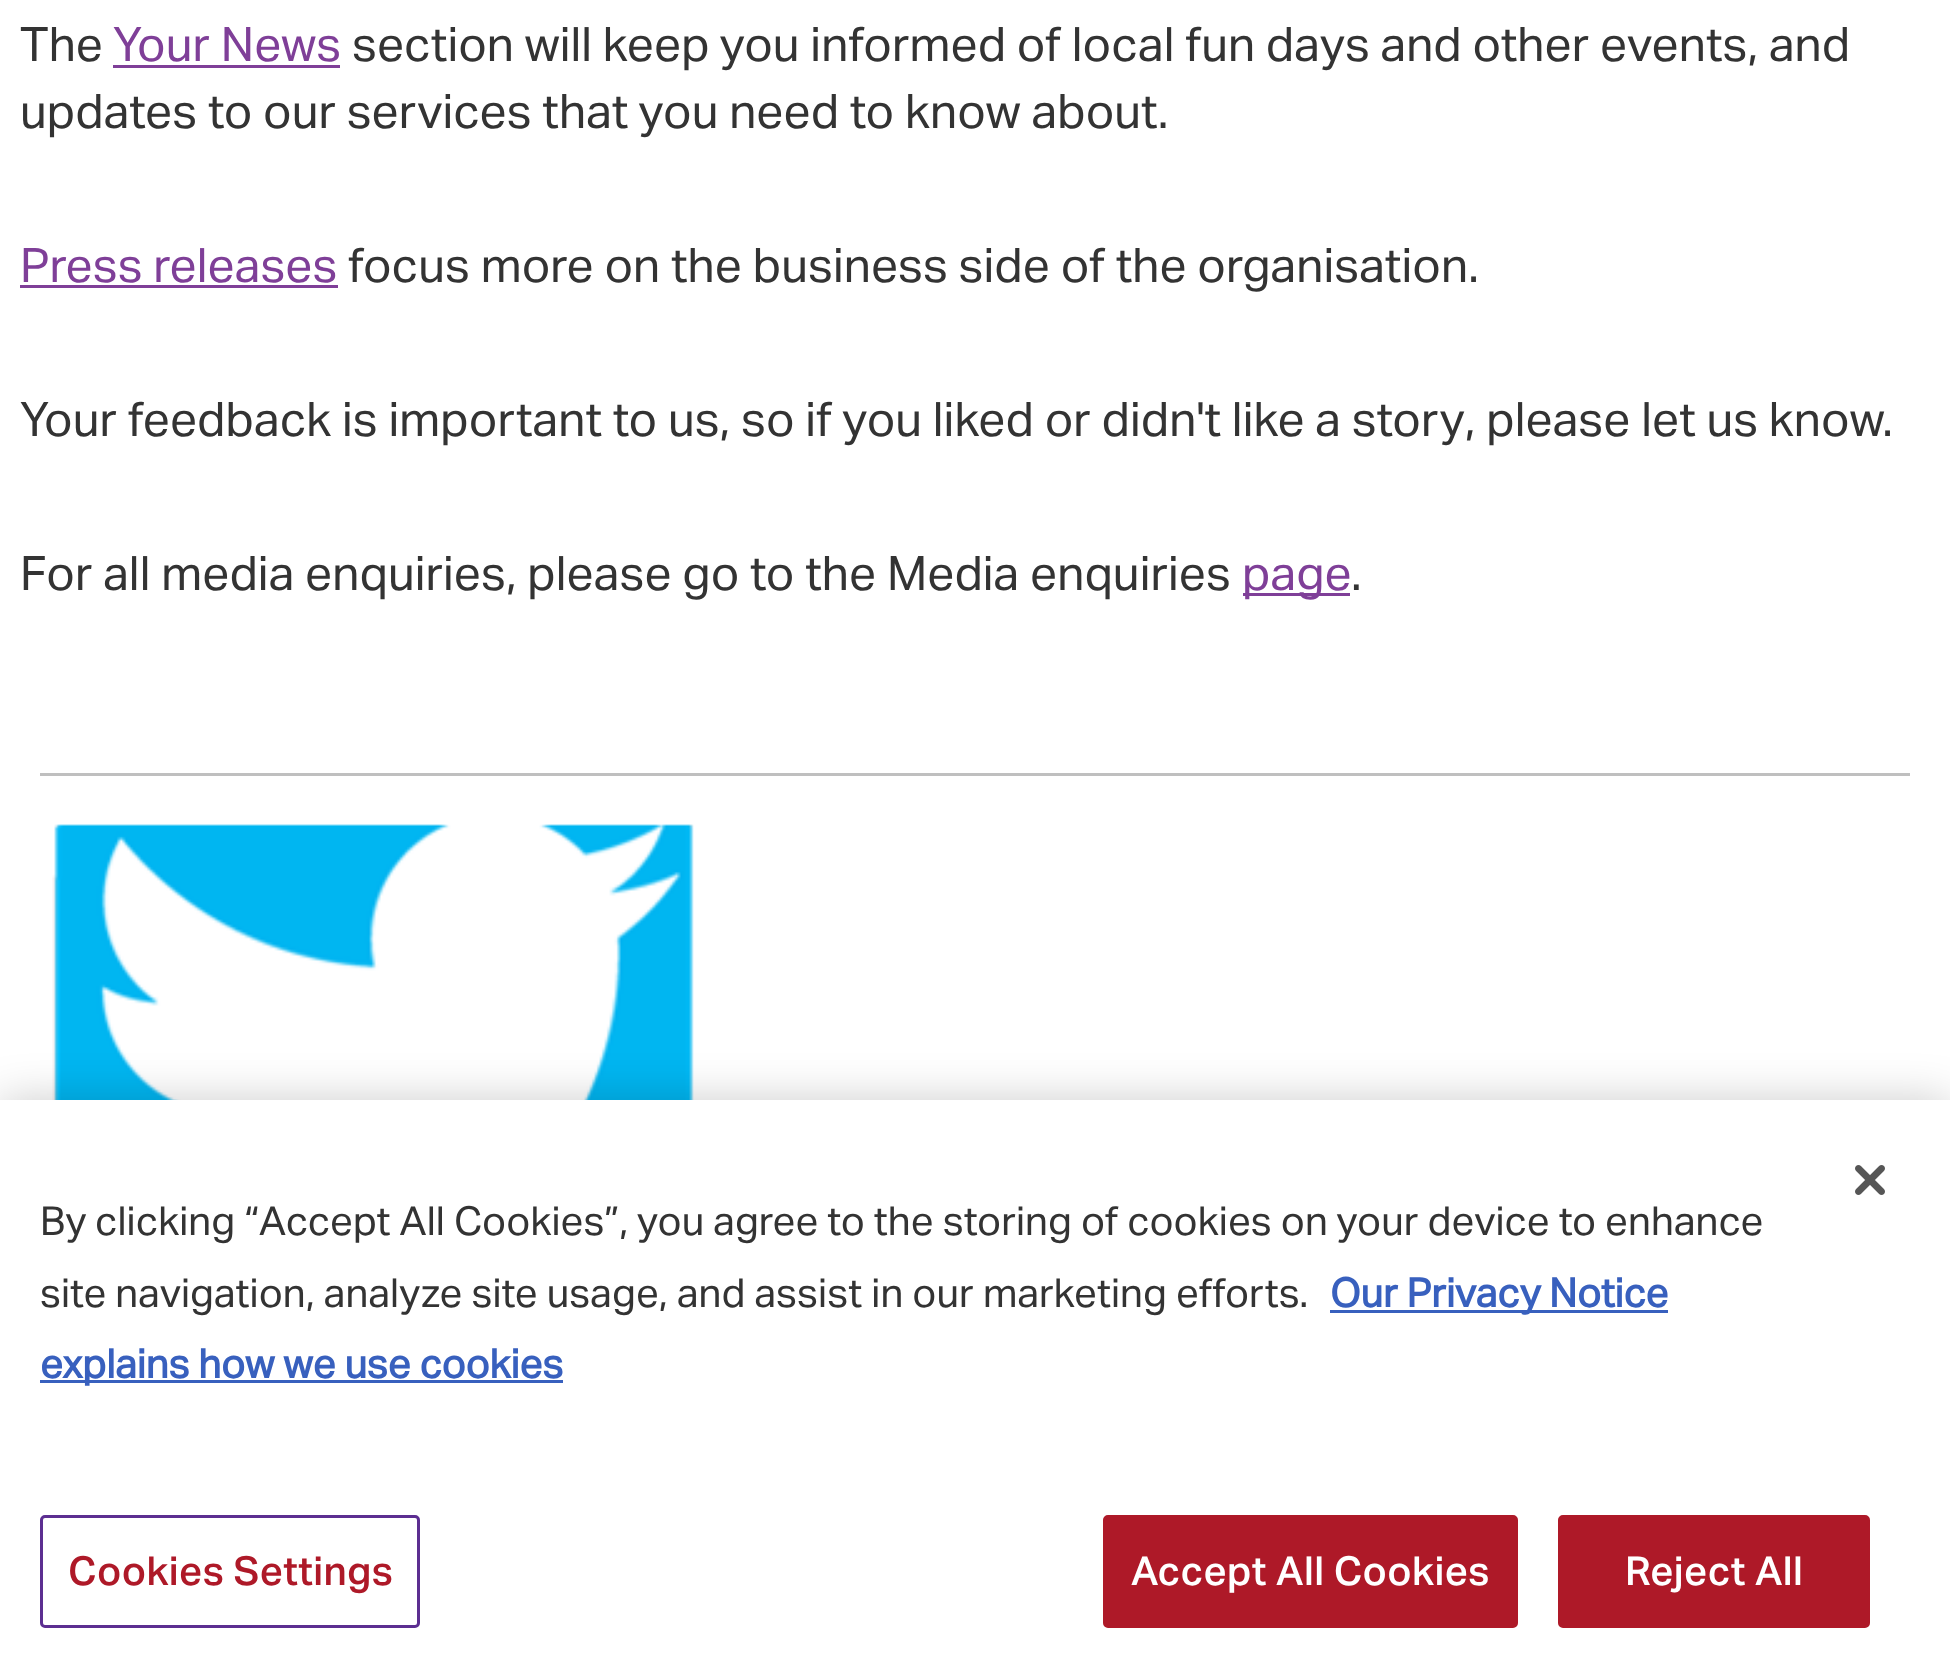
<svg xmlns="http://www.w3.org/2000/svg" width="1950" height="1677">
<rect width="100%" height="100%" fill="#fff"/>
<text x="20" y="61" style="font-family:'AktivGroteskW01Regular';font-size:47.5px;letter-spacing:0.12px;fill:#333">The</text>
<text x="113" y="61" style="font-family:'AktivGroteskW01Regular';font-size:47.5px;letter-spacing:0.12px;fill:#7f3f98">Your News</text>
<rect x="113" y="65" width="227" height="3" fill="#7f3f98"/>
<text x="352" y="61" style="font-family:'AktivGroteskW01Regular';font-size:47.5px;letter-spacing:0.12px;fill:#333">section will keep you informed of local fun days and other events, and</text>
<text x="20" y="128" style="font-family:'AktivGroteskW01Regular';font-size:47.5px;letter-spacing:0.12px;fill:#333">updates to our services that you need to know about.</text>
<text x="20" y="282" style="font-family:'AktivGroteskW01Regular';font-size:47.5px;letter-spacing:0.12px;fill:#7f3f98">Press releases</text>
<rect x="20" y="285" width="318" height="3" fill="#7f3f98"/>
<text x="348" y="282" style="font-family:'AktivGroteskW01Regular';font-size:47.5px;letter-spacing:0.12px;fill:#333">focus more on the business side of the organisation.</text>
<text x="20" y="436" style="font-family:'AktivGroteskW01Regular';font-size:47.5px;letter-spacing:0.12px;fill:#333">Your feedback is important to us, so if you liked or didn't like a story, please let us know.</text>
<text x="20" y="590" style="font-family:'AktivGroteskW01Regular';font-size:47.5px;letter-spacing:0.12px;fill:#333">For all media enquiries, please go to the Media enquiries</text>
<rect x="1243" y="593" width="107" height="3" fill="#7f3f98"/>
<text x="1242" y="590" style="font-family:'AktivGroteskW01Regular';font-size:47.5px;letter-spacing:0.12px;fill:#7f3f98">page</text>
<text x="1351" y="590" style="font-family:'AktivGroteskW01Regular';font-size:47.5px;letter-spacing:0.12px;fill:#333">.</text>
<rect x="40" y="773" width="1870" height="3" fill="#bfbfbf"/>
<image x="52" y="824" width="642" height="276" href="media/1.png"/>
<rect y="1100" width="1950" height="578" fill="#00000033" filter="blur(22.5px)"/>
<rect y="1100" width="1950" height="577" fill="#fff"/>
<image x="1855" y="1165" width="30" height="30" href="media/2.png"/>
<text x="40" y="1235" style="font-family:'AktivGroteskW01Regular';font-size:40px;letter-spacing:0.12px;fill:#333">By clicking “Accept All Cookies”, you agree to the storing of cookies on your device to enhance</text>
<text x="40" y="1307" style="font-family:'AktivGroteskW01Regular';font-size:40px;letter-spacing:0.12px;fill:#333">site navigation, analyze site usage, and assist in our marketing efforts.</text>
<rect x="1330" y="1310" width="338" height="3" fill="#3860be"/>
<text x="1330" y="1307" style="font-family:'AktivGroteskW01Regular';font-size:40px;font-weight:bold;fill:#3860be">Our Privacy Notice</text>
<rect x="40" y="1380" width="523" height="3" fill="#3860be"/>
<text x="40" y="1378" style="font-family:'AktivGroteskW01Regular';font-size:40px;font-weight:bold;fill:#3860be">explains how we use cookies</text>
<rect x="41.5" y="1516.5" width="377" height="110" rx="3.5" fill="none" stroke="#5c2e91" stroke-width="3"/>
<text x="68" y="1585" style="font-family:'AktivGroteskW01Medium';font-size:40px;font-weight:500;letter-spacing:0.4px;fill:#ae1928">Cookies Settings</text>
<rect x="1104.5" y="1516.5" width="412" height="110" rx="3.5" fill="#ae1928" stroke="#ae1928" stroke-width="3"/>
<text x="1131" y="1585" style="font-family:'AktivGroteskW01Medium';font-size:40px;font-weight:500;letter-spacing:0.4px;fill:#fff">Accept All Cookies</text>
<rect x="1559.5" y="1516.5" width="309" height="110" rx="3.5" fill="#ae1928" stroke="#ae1928" stroke-width="3"/>
<text x="1625" y="1585" style="font-family:'AktivGroteskW01Medium';font-size:40px;font-weight:500;letter-spacing:0.4px;fill:#fff">Reject All</text>
</svg>
